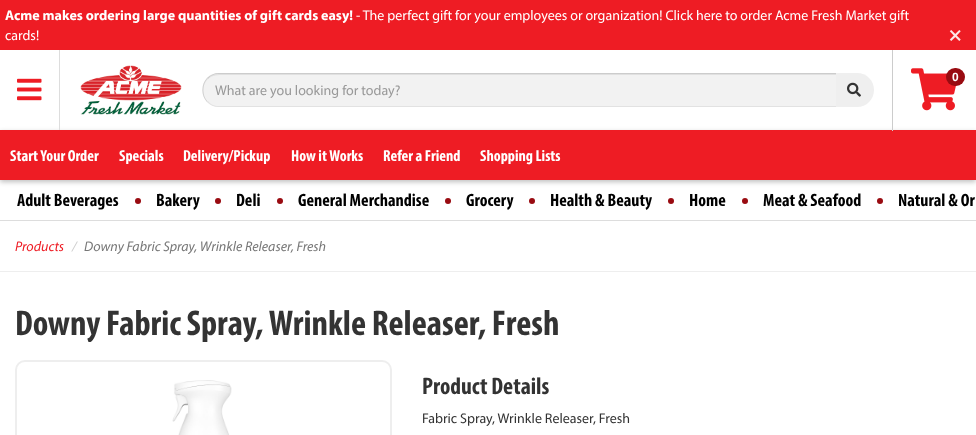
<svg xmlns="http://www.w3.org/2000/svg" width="976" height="435">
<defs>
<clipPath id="clip1"><rect x="15" y="302" width="946" height="40"/></clipPath>
</defs>
<rect width="100%" height="100%" fill="#fff"/>
<rect width="976" height="50" fill="#ee1c24"/>
<text x="5" y="20" style="font-family:Myriad;font-size:14px;font-weight:bold;fill:#fff">Acme makes ordering large quantities of gift cards easy!</text>
<text x="356" y="20" style="font-family:Myriad;font-size:14px;fill:#fff">- The perfect gift for your employees or organization! Click here to order Acme Fresh Market gift</text>
<text x="5" y="40" style="font-family:Myriad;font-size:14px;fill:#fff">cards!</text>
<text x="949" y="41" style="font-family:Myriad;font-size:21px;font-weight:bold;fill:#fde8e9">×</text>
<rect y="132" width="976" height="50" fill="#00000040" filter="blur(2.5px)"/>
<rect x="59" y="50" width="1" height="80" fill="#ddd"/>
<image x="17" y="78" width="25" height="23" href="media/1.png"/>
<image x="80" y="65" width="102" height="50" href="media/2.png"/>
<rect y="130" width="976" height="50" fill="#ee1c24"/>
<rect x="892" y="50" width="1" height="81" fill="#ccc"/>
<image x="911" y="68" width="46" height="43" href="media/3.png"/>
<rect x="946" y="68" width="19" height="18" rx="9" fill="#990b11"/>
<text x="952" y="81" style="font-family:Liberation Sans;font-size:12px;font-weight:bold;fill:#fff">0</text>
<path d="M219 73h618v34h-618c-9.5 0-17-7.5-17-17c0-9.5 7.5-17 17-17z" fill="#f2f2f2"/>
<path d="M219 75h617v-1h-617c-9 0-16 7-16 16v4c-1-9 4-19 16-19z" fill="#e0e0e0"/>
<path d="M219 73c-5 0-9 2-12 5l1 1c2-3 6-5 11-5h617l1-1z" fill="#ccc"/>
<path d="M837 107l-1-1h-617c-5 0-9-2-11-5l-1 1c3 3 7 5 12 5z" fill="#e2e2e2"/>
<path d="M207 78c-6 6.5-6 17.5 0 24l.5-.5c-5.5-6-5.5-17 0-23z" fill="#ccc"/>
<text x="215" y="95" style="font-family:Myriad;font-size:14px;fill:#999">What are you looking for today?</text>
<path d="M836 73h21c9.5 0 17 7.5 17 17c0 9.5-7.5 17-17 17h-21z" fill="#efefef"/>
<image x="847" y="82" width="14" height="15" href="media/4.png"/>
<text x="10" y="161" style="font-family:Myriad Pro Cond;font-size:16px;font-weight:bold;fill:#fff">Start Your Order</text>
<text x="119" y="161" style="font-family:Myriad Pro Cond;font-size:16px;font-weight:bold;fill:#fff">Specials</text>
<text x="183" y="161" style="font-family:Myriad Pro Cond;font-size:16px;font-weight:bold;fill:#fff">Delivery/Pickup</text>
<text x="291" y="161" style="font-family:Myriad Pro Cond;font-size:16px;font-weight:bold;fill:#fff">How it Works</text>
<text x="383" y="161" style="font-family:Myriad Pro Cond;font-size:16px;font-weight:bold;fill:#fff">Refer a Friend</text>
<text x="480" y="161" style="font-family:Myriad Pro Cond;font-size:16px;font-weight:bold;fill:#fff">Shopping Lists</text>
<text x="17" y="206" style="font-family:Myriad Pro Cond;font-size:18px;font-weight:bold;fill:#000">Adult Beverages</text>
<circle cx="138" cy="201" r="3" fill="#990b11"/>
<text x="156" y="206" style="font-family:Myriad Pro Cond;font-size:18px;font-weight:bold;fill:#000">Bakery</text>
<circle cx="218" cy="201" r="3" fill="#990b11"/>
<text x="236" y="206" style="font-family:Myriad Pro Cond;font-size:18px;font-weight:bold;fill:#000">Deli</text>
<circle cx="280" cy="201" r="3" fill="#990b11"/>
<text x="298" y="206" style="font-family:Myriad Pro Cond;font-size:18px;font-weight:bold;fill:#000">General Merchandise</text>
<circle cx="448" cy="201" r="3" fill="#990b11"/>
<text x="466" y="206" style="font-family:Myriad Pro Cond;font-size:18px;font-weight:bold;fill:#000">Grocery</text>
<circle cx="532" cy="201" r="3" fill="#990b11"/>
<text x="550" y="206" style="font-family:Myriad Pro Cond;font-size:18px;font-weight:bold;fill:#000">Health &amp; Beauty</text>
<circle cx="671" cy="201" r="3" fill="#990b11"/>
<text x="689" y="206" style="font-family:Myriad Pro Cond;font-size:18px;font-weight:bold;fill:#000">Home</text>
<circle cx="745" cy="201" r="3" fill="#990b11"/>
<text x="763" y="206" style="font-family:Myriad Pro Cond;font-size:18px;font-weight:bold;fill:#000">Meat &amp; Seafood</text>
<circle cx="880" cy="201" r="3" fill="#990b11"/>
<text x="898" y="206" style="font-family:Myriad Pro Cond;font-size:18px;font-weight:bold;fill:#000">Natural &amp; Or</text>
<rect y="220" width="976" height="1" fill="#ddd"/>
<rect y="271" width="976" height="1" fill="#eee"/>
<text x="15" y="251" style="font-family:Myriad;font-size:14px;font-style:italic;fill:#ee1c24">Products</text>
<text x="72" y="251" style="font-family:Myriad;font-size:14px;font-style:italic;fill:#ccc">/</text>
<text x="84" y="251" style="font-family:Myriad;font-size:14px;font-style:italic;fill:#777">Downy Fabric Spray, Wrinkle Releaser, Fresh</text>
<g clip-path="url(#clip1)">
<text x="15" y="335" style="font-family:Myriad Pro Cond;font-size:36px;font-weight:bold;fill:#333">Downy Fabric Spray, Wrinkle Releaser, Fresh</text>
</g>
<rect x="16" y="361" width="375" height="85" rx="9" fill="none" stroke="#eee" stroke-width="2"/>
<image x="172" y="380" width="60" height="55" href="media/5.png"/>
<text x="422" y="394" style="font-family:Myriad Pro Cond;font-size:24px;font-weight:bold;fill:#333">Product Details</text>
<text x="422" y="423" style="font-family:Myriad;font-size:14px;fill:#333">Fabric Spray, Wrinkle Releaser, Fresh</text>
</svg>
